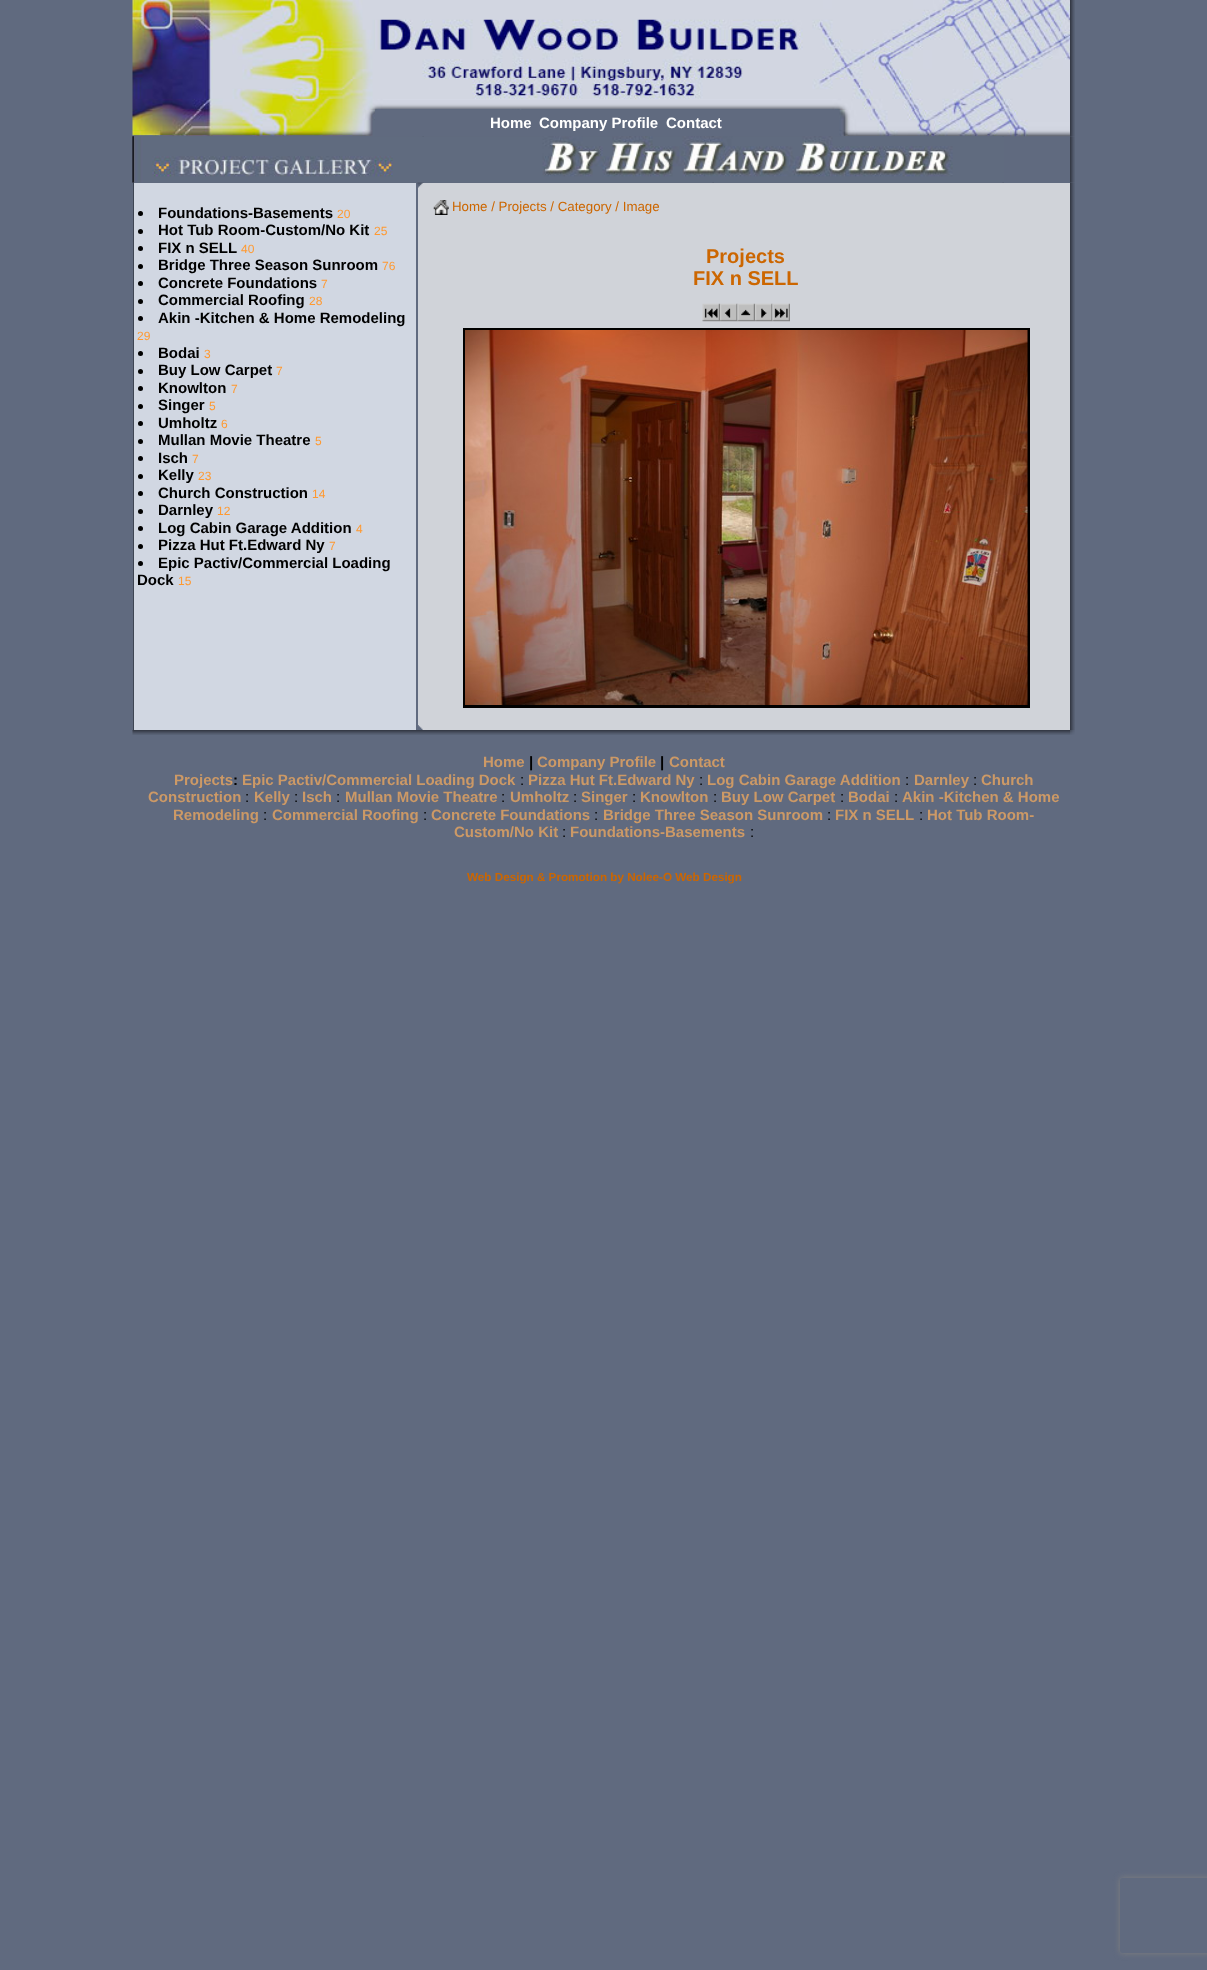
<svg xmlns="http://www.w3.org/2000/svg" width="1207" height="1970">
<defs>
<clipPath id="clip1"><path d="M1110 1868h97v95h-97zm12.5 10h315c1.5 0 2.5 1 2.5 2.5v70c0 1.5-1 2.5-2.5 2.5h-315c-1.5 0-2.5-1-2.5-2.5v-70c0-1.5 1-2.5 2.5-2.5z" clip-rule="evenodd"/></clipPath>
</defs>
<rect width="100%" height="100%" fill="#606a7f"/>
<image x="132" y="0" width="938" height="110" href="media/1.png"/>
<image x="1070" y="0" width="5" height="110" href="media/2.png"/>
<image x="132" y="136" width="872" height="47" href="media/6.png"/>
<image x="132" y="110" width="243" height="27" href="media/3.png"/>
<text x="490" y="128" style="font-family:Liberation Sans;font-size:15px;font-weight:bold;fill:#fff">Home</text>
<text x="539" y="128" style="font-family:Liberation Sans;font-size:15px;font-weight:bold;fill:#fff">Company Profile</text>
<text x="666" y="128" style="font-family:Liberation Sans;font-size:15px;font-weight:bold;fill:#fff">Contact</text>
<image x="839" y="110" width="231" height="27" href="media/4.png"/>
<image x="1070" y="110" width="5" height="27" href="media/5.png"/>
<image x="132" y="136" width="872" height="47" href="media/7.png"/>
<image x="1070" y="136" width="5" height="47" href="media/8.png"/>
<rect x="133" y="183" width="1" height="547" fill="#3e4553"/>
<rect x="134" y="183" width="282" height="547" fill="#d1d7e2"/>
<circle cx="140.5" cy="213.5" r="2.5" fill="#000"/>
<text x="158" y="218" style="font-family:Liberation Sans;font-size:15px;font-weight:bold;fill:#000">Foundations-Basements</text>
<text x="337" y="218" style="font-family:Liberation Sans;font-size:12px;fill:#ff9930">20</text>
<circle cx="140.5" cy="231.5" r="2.5" fill="#000"/>
<text x="158" y="235" style="font-family:Liberation Sans;font-size:15px;font-weight:bold;fill:#000">Hot Tub Room-Custom/No Kit</text>
<text x="374" y="235" style="font-family:Liberation Sans;font-size:12px;fill:#ff9930">25</text>
<circle cx="140.5" cy="248.5" r="2.5" fill="#000"/>
<text x="158" y="253" style="font-family:Liberation Sans;font-size:15px;font-weight:bold;fill:#000">FIX n SELL</text>
<text x="241" y="253" style="font-family:Liberation Sans;font-size:12px;fill:#ff9930">40</text>
<circle cx="140.5" cy="266.5" r="2.5" fill="#000"/>
<text x="158" y="270" style="font-family:Liberation Sans;font-size:15px;font-weight:bold;fill:#000">Bridge Three Season Sunroom</text>
<text x="382" y="270" style="font-family:Liberation Sans;font-size:12px;fill:#ff9930">76</text>
<circle cx="140.5" cy="283.5" r="2.5" fill="#000"/>
<text x="158" y="288" style="font-family:Liberation Sans;font-size:15px;font-weight:bold;fill:#000">Concrete Foundations</text>
<text x="321" y="288" style="font-family:Liberation Sans;font-size:12px;fill:#ff9930">7</text>
<circle cx="140.5" cy="301.5" r="2.5" fill="#000"/>
<text x="158" y="305" style="font-family:Liberation Sans;font-size:15px;font-weight:bold;fill:#000">Commercial Roofing</text>
<text x="309" y="305" style="font-family:Liberation Sans;font-size:12px;fill:#ff9930">28</text>
<circle cx="140.5" cy="318.5" r="2.5" fill="#000"/>
<text x="158" y="323" style="font-family:Liberation Sans;font-size:15px;font-weight:bold;fill:#000">Akin -Kitchen &amp; Home Remodeling</text>
<text x="137" y="340" style="font-family:Liberation Sans;font-size:12px;fill:#ff9930">29</text>
<circle cx="140.5" cy="353.5" r="2.5" fill="#000"/>
<text x="158" y="358" style="font-family:Liberation Sans;font-size:15px;font-weight:bold;fill:#000">Bodai</text>
<text x="204" y="358" style="font-family:Liberation Sans;font-size:12px;fill:#ff9930">3</text>
<circle cx="140.5" cy="371.5" r="2.5" fill="#000"/>
<text x="158" y="375" style="font-family:Liberation Sans;font-size:15px;font-weight:bold;fill:#000">Buy Low Carpet</text>
<text x="276" y="375" style="font-family:Liberation Sans;font-size:12px;fill:#ff9930">7</text>
<circle cx="140.5" cy="388.5" r="2.5" fill="#000"/>
<text x="158" y="393" style="font-family:Liberation Sans;font-size:15px;font-weight:bold;fill:#000">Knowlton</text>
<text x="231" y="393" style="font-family:Liberation Sans;font-size:12px;fill:#ff9930">7</text>
<circle cx="140.5" cy="406.5" r="2.5" fill="#000"/>
<text x="158" y="410" style="font-family:Liberation Sans;font-size:15px;font-weight:bold;fill:#000">Singer</text>
<text x="209" y="410" style="font-family:Liberation Sans;font-size:12px;fill:#ff9930">5</text>
<circle cx="140.5" cy="423.5" r="2.5" fill="#000"/>
<text x="158" y="428" style="font-family:Liberation Sans;font-size:15px;font-weight:bold;fill:#000">Umholtz</text>
<text x="221" y="428" style="font-family:Liberation Sans;font-size:12px;fill:#ff9930">6</text>
<circle cx="140.5" cy="441.5" r="2.5" fill="#000"/>
<text x="158" y="445" style="font-family:Liberation Sans;font-size:15px;font-weight:bold;fill:#000">Mullan Movie Theatre</text>
<text x="315" y="445" style="font-family:Liberation Sans;font-size:12px;fill:#ff9930">5</text>
<circle cx="140.5" cy="458.5" r="2.5" fill="#000"/>
<text x="158" y="463" style="font-family:Liberation Sans;font-size:15px;font-weight:bold;fill:#000">Isch</text>
<text x="192" y="463" style="font-family:Liberation Sans;font-size:12px;fill:#ff9930">7</text>
<circle cx="140.5" cy="476.5" r="2.5" fill="#000"/>
<text x="158" y="480" style="font-family:Liberation Sans;font-size:15px;font-weight:bold;fill:#000">Kelly</text>
<text x="198" y="480" style="font-family:Liberation Sans;font-size:12px;fill:#ff9930">23</text>
<circle cx="140.5" cy="493.5" r="2.5" fill="#000"/>
<text x="158" y="498" style="font-family:Liberation Sans;font-size:15px;font-weight:bold;fill:#000">Church Construction</text>
<text x="312" y="498" style="font-family:Liberation Sans;font-size:12px;fill:#ff9930">14</text>
<circle cx="140.5" cy="511.5" r="2.5" fill="#000"/>
<text x="158" y="515" style="font-family:Liberation Sans;font-size:15px;font-weight:bold;fill:#000">Darnley</text>
<text x="217" y="515" style="font-family:Liberation Sans;font-size:12px;fill:#ff9930">12</text>
<circle cx="140.5" cy="528.5" r="2.5" fill="#000"/>
<text x="158" y="533" style="font-family:Liberation Sans;font-size:15px;font-weight:bold;fill:#000">Log Cabin Garage Addition</text>
<text x="356" y="533" style="font-family:Liberation Sans;font-size:12px;fill:#ff9930">4</text>
<circle cx="140.5" cy="546.5" r="2.5" fill="#000"/>
<text x="158" y="550" style="font-family:Liberation Sans;font-size:15px;font-weight:bold;fill:#000">Pizza Hut Ft.Edward Ny</text>
<text x="329" y="550" style="font-family:Liberation Sans;font-size:12px;fill:#ff9930">7</text>
<circle cx="140.5" cy="563.5" r="2.5" fill="#000"/>
<text x="158" y="568" style="font-family:Liberation Sans;font-size:15px;font-weight:bold;fill:#000">Epic Pactiv/Commercial Loading</text>
<text x="137" y="585" style="font-family:Liberation Sans;font-size:15px;font-weight:bold;fill:#000">Dock</text>
<text x="178" y="585" style="font-family:Liberation Sans;font-size:12px;fill:#ff9930">15</text>
<rect x="418" y="183" width="652" height="547" fill="#d0d3d9"/>
<image x="417" y="182" width="6" height="6" href="media/9.png"/>
<image x="433" y="200" width="16" height="15" href="media/10.png"/>
<text x="452" y="211" style="font-family:Liberation Sans;font-size:13.3px;fill:#c60">Home / Projects / Category / Image</text>
<text x="706" y="263" style="font-family:Liberation Sans;font-size:20px;font-weight:bold;fill:#c60">Projects</text>
<text x="693" y="285" style="font-family:Liberation Sans;font-size:20px;font-weight:bold;fill:#c60">FIX n SELL</text>
<image x="702" y="303" width="18" height="19" href="media/11.png"/>
<image x="720" y="303" width="18" height="19" href="media/12.png"/>
<image x="737" y="303" width="18" height="19" href="media/13.png"/>
<image x="755" y="303" width="18" height="19" href="media/14.png"/>
<image x="772" y="303" width="18" height="19" href="media/15.png"/>
<rect x="464.5" y="329.5" width="564" height="377" fill="none" stroke="#000" stroke-width="3"/>
<image x="465" y="330" width="563" height="375" href="media/16.png"/>
<image x="418" y="725" width="5" height="5" href="media/17.png"/>
<image x="1070" y="182" width="5" height="548" href="media/18.png"/>
<image x="132" y="730" width="938" height="5" href="media/19.png"/>
<image x="1070" y="730" width="5" height="5" href="media/20.png"/>
<text x="483" y="767" style="font-family:Liberation Sans;font-size:15px;font-weight:bold;fill:#c96">Home</text>
<text x="529" y="767" style="font-family:Liberation Sans;font-size:15px;font-weight:bold;fill:#000">|</text>
<text x="537" y="767" style="font-family:Liberation Sans;font-size:15px;font-weight:bold;fill:#c96">Company Profile</text>
<text x="660" y="767" style="font-family:Liberation Sans;font-size:15px;font-weight:bold;fill:#000">|</text>
<text x="669" y="767" style="font-family:Liberation Sans;font-size:15px;font-weight:bold;fill:#c96">Contact</text>
<text x="174" y="785" style="font-family:Liberation Sans;font-size:15px;font-weight:bold;fill:#c96">Projects</text>
<text x="233" y="785" style="font-family:Liberation Sans;font-size:15px;font-weight:bold;fill:#000">:</text>
<text x="242" y="785" style="font-family:Liberation Sans;font-size:15px;font-weight:bold;fill:#c96">Epic Pactiv/Commercial Loading Dock</text>
<text x="520" y="785" style="font-family:Liberation Sans;font-size:15px;fill:#000">:</text>
<text x="528" y="785" style="font-family:Liberation Sans;font-size:15px;font-weight:bold;fill:#c96">Pizza Hut Ft.Edward Ny</text>
<text x="699" y="785" style="font-family:Liberation Sans;font-size:15px;fill:#000">:</text>
<text x="707" y="785" style="font-family:Liberation Sans;font-size:15px;font-weight:bold;fill:#c96">Log Cabin Garage Addition</text>
<text x="905" y="785" style="font-family:Liberation Sans;font-size:15px;fill:#000">:</text>
<text x="914" y="785" style="font-family:Liberation Sans;font-size:15px;font-weight:bold;fill:#c96">Darnley</text>
<text x="973" y="785" style="font-family:Liberation Sans;font-size:15px;fill:#000">:</text>
<text x="981" y="785" style="font-family:Liberation Sans;font-size:15px;font-weight:bold;fill:#c96">Church</text>
<text x="148" y="802" style="font-family:Liberation Sans;font-size:15px;font-weight:bold;fill:#c96">Construction</text>
<text x="245" y="802" style="font-family:Liberation Sans;font-size:15px;fill:#000">:</text>
<text x="254" y="802" style="font-family:Liberation Sans;font-size:15px;font-weight:bold;fill:#c96">Kelly</text>
<text x="294" y="802" style="font-family:Liberation Sans;font-size:15px;fill:#000">:</text>
<text x="302" y="802" style="font-family:Liberation Sans;font-size:15px;font-weight:bold;fill:#c96">Isch</text>
<text x="336" y="802" style="font-family:Liberation Sans;font-size:15px;fill:#000">:</text>
<text x="345" y="802" style="font-family:Liberation Sans;font-size:15px;font-weight:bold;fill:#c96">Mullan Movie Theatre</text>
<text x="501" y="802" style="font-family:Liberation Sans;font-size:15px;fill:#000">:</text>
<text x="510" y="802" style="font-family:Liberation Sans;font-size:15px;font-weight:bold;fill:#c96">Umholtz</text>
<text x="573" y="802" style="font-family:Liberation Sans;font-size:15px;fill:#000">:</text>
<text x="581" y="802" style="font-family:Liberation Sans;font-size:15px;font-weight:bold;fill:#c96">Singer</text>
<text x="632" y="802" style="font-family:Liberation Sans;font-size:15px;fill:#000">:</text>
<text x="640" y="802" style="font-family:Liberation Sans;font-size:15px;font-weight:bold;fill:#c96">Knowlton</text>
<text x="713" y="802" style="font-family:Liberation Sans;font-size:15px;fill:#000">:</text>
<text x="721" y="802" style="font-family:Liberation Sans;font-size:15px;font-weight:bold;fill:#c96">Buy Low Carpet</text>
<text x="840" y="802" style="font-family:Liberation Sans;font-size:15px;fill:#000">:</text>
<text x="848" y="802" style="font-family:Liberation Sans;font-size:15px;font-weight:bold;fill:#c96">Bodai</text>
<text x="894" y="802" style="font-family:Liberation Sans;font-size:15px;fill:#000">:</text>
<text x="902" y="802" style="font-family:Liberation Sans;font-size:15px;font-weight:bold;fill:#c96">Akin -Kitchen &amp; Home</text>
<text x="173" y="820" style="font-family:Liberation Sans;font-size:15px;font-weight:bold;fill:#c96">Remodeling</text>
<text x="263" y="820" style="font-family:Liberation Sans;font-size:15px;fill:#000">:</text>
<text x="272" y="820" style="font-family:Liberation Sans;font-size:15px;font-weight:bold;fill:#c96">Commercial Roofing</text>
<text x="423" y="820" style="font-family:Liberation Sans;font-size:15px;fill:#000">:</text>
<text x="431" y="820" style="font-family:Liberation Sans;font-size:15px;font-weight:bold;fill:#c96">Concrete Foundations</text>
<text x="594" y="820" style="font-family:Liberation Sans;font-size:15px;fill:#000">:</text>
<text x="603" y="820" style="font-family:Liberation Sans;font-size:15px;font-weight:bold;fill:#c96">Bridge Three Season Sunroom</text>
<text x="827" y="820" style="font-family:Liberation Sans;font-size:15px;fill:#000">:</text>
<text x="835" y="820" style="font-family:Liberation Sans;font-size:15px;font-weight:bold;fill:#c96">FIX n SELL</text>
<text x="919" y="820" style="font-family:Liberation Sans;font-size:15px;fill:#000">:</text>
<text x="927" y="820" style="font-family:Liberation Sans;font-size:15px;font-weight:bold;fill:#c96">Hot Tub Room-</text>
<text x="454" y="837" style="font-family:Liberation Sans;font-size:15px;font-weight:bold;fill:#c96">Custom/No Kit</text>
<text x="562" y="837" style="font-family:Liberation Sans;font-size:15px;fill:#000">:</text>
<text x="570" y="837" style="font-family:Liberation Sans;font-size:15px;font-weight:bold;fill:#c96">Foundations-Basements</text>
<text x="750" y="837" style="font-family:Liberation Sans;font-size:15px;fill:#000">:</text>
<text x="467" y="881" style="font-family:Liberation Sans;font-size:11.7px;font-weight:bold;fill:#c60">Web Design &amp; Promotion by Nolee-O Web Design</text>
<g clip-path="url(#clip1)">
<rect x="1120" y="1878" width="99" height="75" rx="2.5" fill="#808080" filter="blur(3px)"/>
</g>
</svg>
